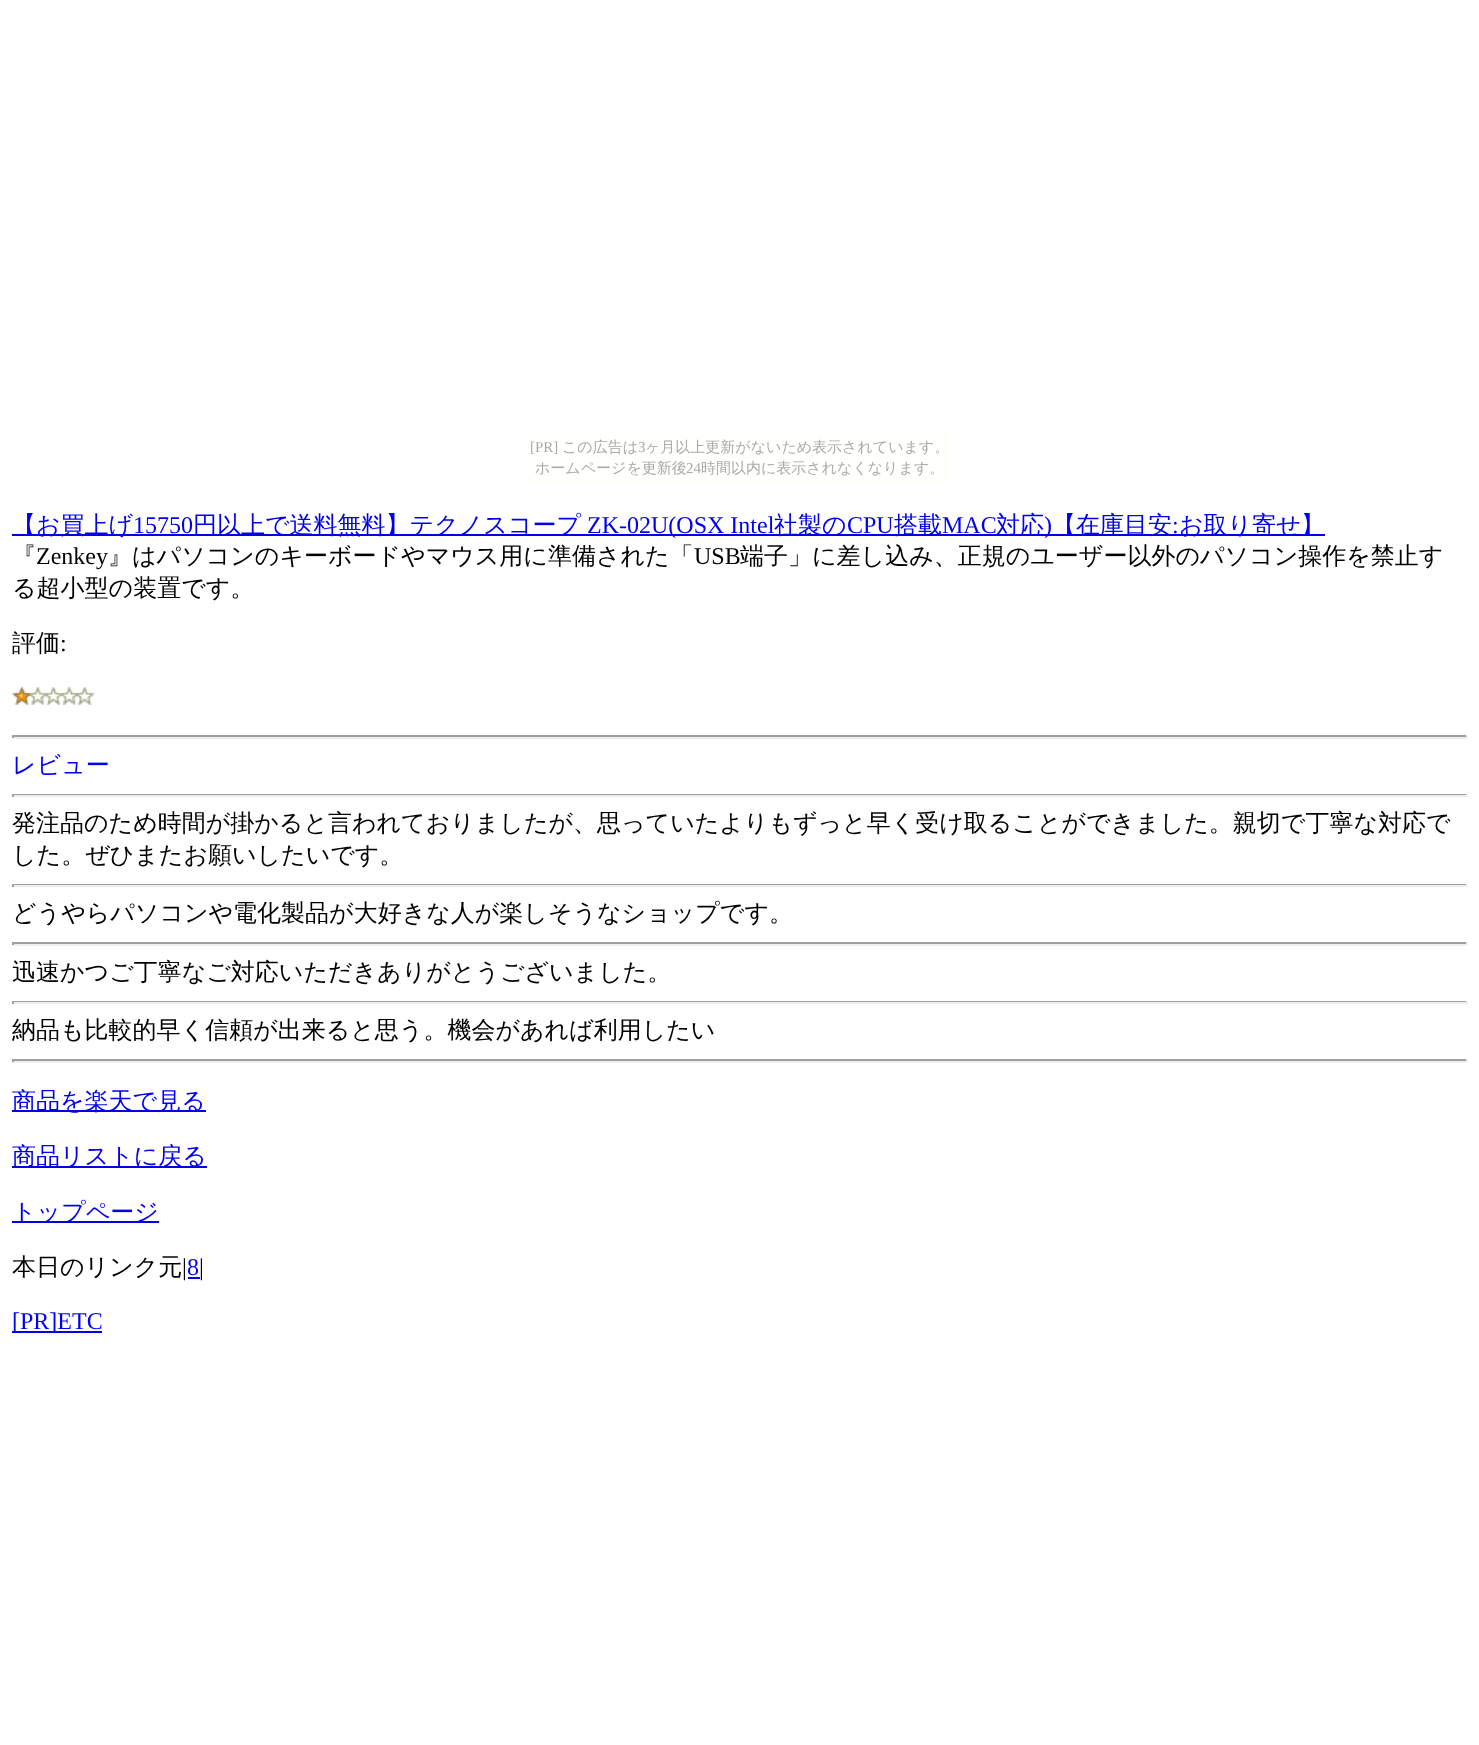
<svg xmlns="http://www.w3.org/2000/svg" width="1479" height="1745">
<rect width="100%" height="100%" fill="#fff"/>
<rect x="525" y="432" width="429" height="51" fill="#fffffc"/>
<text x="530" y="452" style="font-family:Liberation Serif;font-size:15px;fill:#aaa">[PR]</text>
<text x="562" y="452" style="font-family:WenQuanYi Zen Hei;font-size:15px;font-weight:500;fill:#aaa">この広告は</text>
<text x="638" y="452" style="font-family:Liberation Serif;font-size:15px;fill:#aaa">3</text>
<text x="645" y="452" style="font-family:WenQuanYi Zen Hei;font-size:15px;font-weight:500;fill:#aaa">ヶ月以上更新がないため表示されています。</text>
<text x="535" y="473" style="font-family:WenQuanYi Zen Hei;font-size:15px;font-weight:500;fill:#aaa">ホームページを更新後</text>
<text x="686" y="473" style="font-family:Liberation Serif;font-size:15px;fill:#aaa">24</text>
<text x="701" y="473" style="font-family:WenQuanYi Zen Hei;font-size:15px;font-weight:500;fill:#aaa">時間以内に表示されなくなります。</text>
<rect x="12" y="534" width="1313" height="2" fill="#00e"/>
<text x="12" y="533" style="font-family:WenQuanYi Zen Hei;font-size:24px;font-weight:500;fill:#00e">【お買上げ</text>
<text x="133" y="533" style="font-family:Liberation Serif;font-size:24px;fill:#00e">15750</text>
<text x="193" y="533" style="font-family:WenQuanYi Zen Hei;font-size:24px;font-weight:500;fill:#00e">円以上で送料無料】テクノスコープ</text>
<text x="587" y="533" style="font-family:Liberation Serif;font-size:24px;fill:#00e">ZK-02U(OSX Intel</text>
<text x="774" y="533" style="font-family:WenQuanYi Zen Hei;font-size:24px;font-weight:500;fill:#00e">社製の</text>
<text x="847" y="533" style="font-family:Liberation Serif;font-size:24px;fill:#00e">CPU</text>
<text x="894" y="533" style="font-family:WenQuanYi Zen Hei;font-size:24px;font-weight:500;fill:#00e">搭載</text>
<text x="942" y="533" style="font-family:Liberation Serif;font-size:24px;fill:#00e">MAC</text>
<text x="996" y="533" style="font-family:WenQuanYi Zen Hei;font-size:24px;font-weight:500;fill:#00e">対応</text>
<text x="1044" y="533" style="font-family:Liberation Serif;font-size:24px;fill:#00e">)</text>
<text x="1052" y="533" style="font-family:WenQuanYi Zen Hei;font-size:24px;font-weight:500;fill:#00e">【在庫目安</text>
<text x="1172" y="533" style="font-family:Liberation Serif;font-size:24px;fill:#00e">:</text>
<text x="1179" y="533" style="font-family:WenQuanYi Zen Hei;font-size:24px;font-weight:500;fill:#00e">お取り寄せ】</text>
<text x="12" y="564" style="font-family:WenQuanYi Zen Hei;font-size:24px;font-weight:500;fill:#000">『</text>
<text x="36" y="564" style="font-family:Liberation Serif;font-size:24px;fill:#000">Zenkey</text>
<text x="108" y="564" style="font-family:WenQuanYi Zen Hei;font-size:24px;font-weight:500;fill:#000">』はパソコンのキーボードやマウス用に準備された「</text>
<text x="694" y="564" style="font-family:Liberation Serif;font-size:24px;fill:#000">USB</text>
<text x="740" y="564" style="font-family:WenQuanYi Zen Hei;font-size:24px;font-weight:500;fill:#000">端子」に差し込み、正規のユーザー以外のパソコン操作を禁止す</text>
<text x="12" y="596" style="font-family:WenQuanYi Zen Hei;font-size:24px;font-weight:500;fill:#000">る超小型の装置です。</text>
<text x="12" y="651" style="font-family:WenQuanYi Zen Hei;font-size:24px;font-weight:500;fill:#000">評価</text>
<text x="60" y="651" style="font-family:Liberation Serif;font-size:24px;fill:#000">:</text>
<image x="12" y="687" width="83" height="18" href="media/1.png"/>
<rect x="12" y="735" width="1455" height="2" fill="#9f9f9f"/>
<rect x="1466" y="735" width="2" height="3" fill="#eee"/>
<rect x="12" y="737" width="1455" height="2" fill="#eee"/>
<rect x="12" y="735" width="2" height="3" fill="#9f9f9f"/>
<text x="12" y="773" style="font-family:WenQuanYi Zen Hei;font-size:24px;font-weight:500;fill:#00f">レビュー</text>
<rect x="12" y="794" width="1455" height="1" fill="#9f9f9f"/>
<rect x="1466" y="794" width="2" height="3" fill="#eee"/>
<rect x="12" y="795" width="1455" height="2" fill="#eee"/>
<rect x="12" y="794" width="2" height="3" fill="#9f9f9f"/>
<text x="12" y="831" style="font-family:WenQuanYi Zen Hei;font-size:24px;font-weight:500;fill:#000">発注品のため時間が掛かると言われておりましたが、思っていたよりもずっと早く受け取ることができました。親切で丁寧な対応で</text>
<text x="12" y="863" style="font-family:WenQuanYi Zen Hei;font-size:24px;font-weight:500;fill:#000">した。ぜひまたお願いしたいです。</text>
<rect x="12" y="884" width="1455" height="1" fill="#9f9f9f"/>
<rect x="1466" y="884" width="2" height="3" fill="#eee"/>
<rect x="12" y="885" width="1455" height="2" fill="#eee"/>
<rect x="12" y="884" width="2" height="3" fill="#9f9f9f"/>
<text x="12" y="921" style="font-family:WenQuanYi Zen Hei;font-size:24px;font-weight:500;fill:#000">どうやらパソコンや電化製品が大好きな人が楽しそうなショップです。</text>
<rect x="12" y="942" width="1455" height="2" fill="#9f9f9f"/>
<rect x="1466" y="942" width="2" height="3" fill="#eee"/>
<rect x="12" y="944" width="1455" height="2" fill="#eee"/>
<rect x="12" y="942" width="2" height="3" fill="#9f9f9f"/>
<text x="12" y="980" style="font-family:WenQuanYi Zen Hei;font-size:24px;font-weight:500;fill:#000">迅速かつご丁寧なご対応いただきありがとうございました。</text>
<rect x="12" y="1001" width="1455" height="1" fill="#9f9f9f"/>
<rect x="1466" y="1001" width="2" height="3" fill="#eee"/>
<rect x="12" y="1002" width="1455" height="2" fill="#eee"/>
<rect x="12" y="1001" width="2" height="3" fill="#9f9f9f"/>
<text x="12" y="1038" style="font-family:WenQuanYi Zen Hei;font-size:24px;font-weight:500;fill:#000">納品も比較的早く信頼が出来ると思う。機会があれば利用したい</text>
<rect x="12" y="1059" width="1455" height="2" fill="#9f9f9f"/>
<rect x="1466" y="1059" width="2" height="3" fill="#eee"/>
<rect x="12" y="1061" width="1455" height="2" fill="#eee"/>
<rect x="12" y="1059" width="2" height="3" fill="#9f9f9f"/>
<rect x="12" y="1110" width="194" height="2" fill="#00e"/>
<text x="12" y="1109" style="font-family:WenQuanYi Zen Hei;font-size:24px;font-weight:500;fill:#00e">商品を楽天で見る</text>
<rect x="12" y="1166" width="195" height="2" fill="#00e"/>
<text x="12" y="1164" style="font-family:WenQuanYi Zen Hei;font-size:24px;font-weight:500;fill:#00e">商品リストに戻る</text>
<rect x="12" y="1221" width="147" height="2" fill="#00e"/>
<text x="12" y="1220" style="font-family:WenQuanYi Zen Hei;font-size:24px;font-weight:500;fill:#00e">トップページ</text>
<text x="12" y="1275" style="font-family:WenQuanYi Zen Hei;font-size:24px;font-weight:500;fill:#000">本日のリンク元</text>
<text x="182" y="1275" style="font-family:Liberation Serif;font-size:24px;fill:#000">|</text>
<text x="187" y="1275" style="font-family:Liberation Serif;font-size:24px;fill:#00e">8</text>
<rect x="188" y="1277" width="12" height="2" fill="#00e"/>
<text x="199" y="1275" style="font-family:Liberation Serif;font-size:24px;fill:#000">|</text>
<rect x="12" y="1331" width="90" height="2" fill="#00e"/>
<text x="12" y="1329" style="font-family:Liberation Serif;font-size:24px;fill:#00e">[PR]ETC</text>
</svg>
